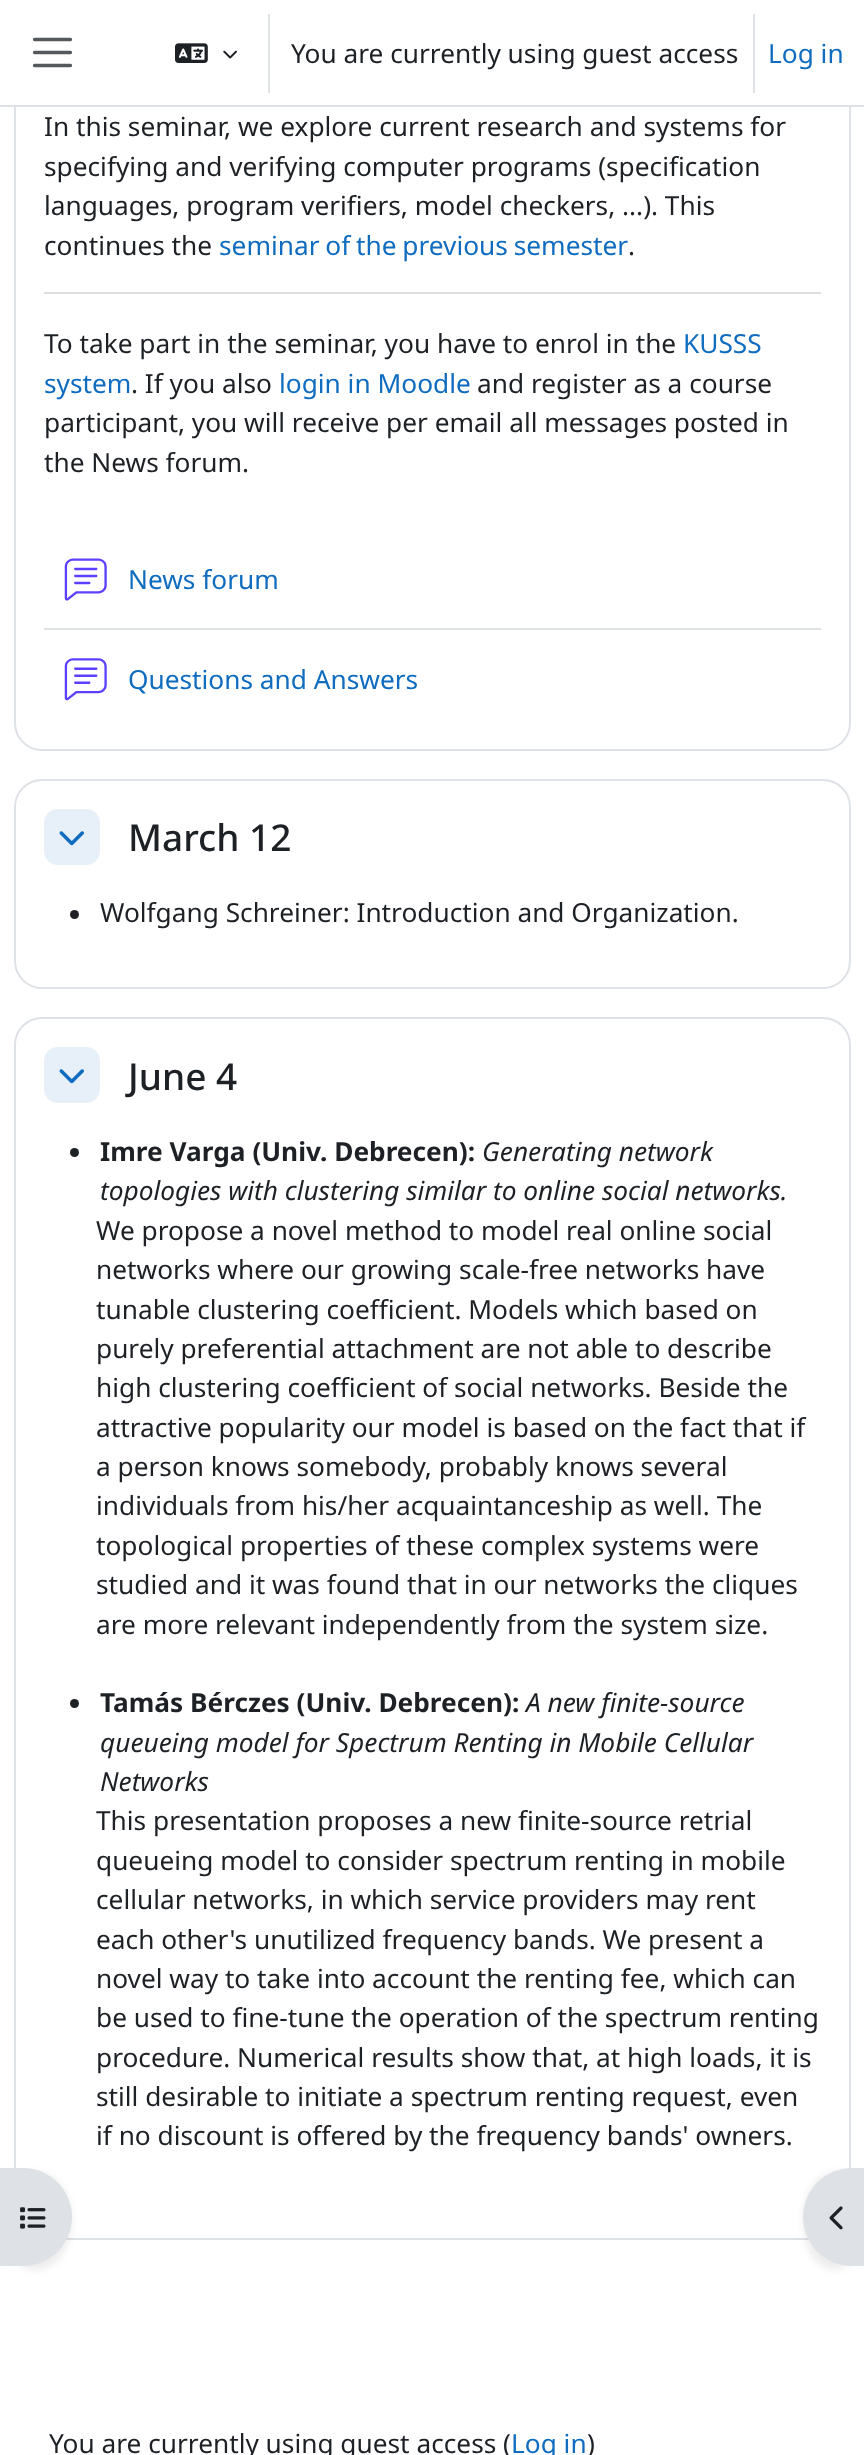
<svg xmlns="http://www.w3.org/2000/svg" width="864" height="2455">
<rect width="100%" height="100%" fill="#fff"/>
<rect x="15" y="-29" width="835" height="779" rx="27" fill="none" stroke="#dee2e6" stroke-width="2"/>
<rect x="14" width="837" height="105" fill="#fff"/>
<rect y="105" width="864" height="2" fill="#dee2e6"/>
<path d="M34.5 39.5h36m-36 13h36m-36 13h36" fill="none" stroke="#56595c" stroke-width="3.3" stroke-linecap="round"/>
<image x="175" y="43" width="33" height="20" href="media/1.png"/>
<image x="223" y="50" width="14" height="9" href="media/2.png"/>
<rect x="268" y="14" width="2" height="79" fill="#dee2e6"/>
<text x="291" y="63" style="font-family:Noto Sans;font-size:26.25px;fill:#1d2125">You are currently using guest access</text>
<rect x="753" y="14" width="2" height="79" fill="#dee2e6"/>
<text x="768" y="63" style="font-family:Noto Sans;font-size:26.25px;fill:#0f6cbf">Log in</text>
<text x="44" y="136" style="font-family:Noto Sans;font-size:26.25px;fill:#1d2125">In this seminar, we explore current research and systems for</text>
<text x="44" y="176" style="font-family:Noto Sans;font-size:26.25px;fill:#1d2125">specifying and verifying computer programs (specification</text>
<text x="44" y="215" style="font-family:Noto Sans;font-size:26.25px;fill:#1d2125">languages, program verifiers, model checkers, ...). This</text>
<text x="44" y="255" style="font-family:Noto Sans;font-size:26.25px;fill:#1d2125">continues the</text>
<text x="219" y="255" word-spacing="-1" style="font-family:Noto Sans;font-size:26.25px;fill:#0f6cbf">seminar of the previous semester</text>
<text x="628" y="255" style="font-family:Noto Sans;font-size:26.25px;fill:#1d2125">.</text>
<rect x="44" y="292" width="777" height="2" fill="#dddede"/>
<text x="44" y="353" style="font-family:Noto Sans;font-size:26.25px;fill:#1d2125">To take part in the seminar, you have to enrol in the</text>
<text x="683" y="353" style="font-family:Noto Sans;font-size:26.25px;fill:#0f6cbf">KUSSS</text>
<text x="44" y="393" style="font-family:Noto Sans;font-size:26.25px;fill:#0f6cbf">system</text>
<text x="131" y="393" style="font-family:Noto Sans;font-size:26.25px;fill:#1d2125">. If you also</text>
<text x="279" y="393" style="font-family:Noto Sans;font-size:26.25px;fill:#0f6cbf">login in Moodle</text>
<text x="477" y="393" style="font-family:Noto Sans;font-size:26.25px;fill:#1d2125">and register as a course</text>
<text x="44" y="432" style="font-family:Noto Sans;font-size:26.25px;fill:#1d2125">participant, you will receive per email all messages posted in</text>
<text x="44" y="472" style="font-family:Noto Sans;font-size:26.25px;fill:#1d2125">the News forum.</text>
<image x="64" y="558" width="43" height="43" href="media/3.png"/>
<text x="128" y="589" style="font-family:Noto Sans;font-size:26.25px;fill:#0f6cbf">News forum</text>
<rect x="44" y="628" width="777" height="2" fill="#dee2e6"/>
<image x="64" y="658" width="43" height="43" href="media/4.png"/>
<text x="128" y="689" style="font-family:Noto Sans;font-size:26.25px;fill:#0f6cbf">Questions and Answers</text>
<rect x="15" y="780" width="835" height="208" rx="27" fill="none" stroke="#dee2e6" stroke-width="2"/>
<rect x="44" y="809" width="56" height="56" rx="14" fill="#e7f0f9"/>
<image x="59" y="831" width="25" height="15" href="media/5.png"/>
<text x="128" y="851" style="font-family:Noto Sans;font-size:37px;font-weight:500;fill:#1d2125">March 12</text>
<circle cx="74.5" cy="914.5" r="4.5" fill="#1d2125"/>
<text x="100" y="922" style="font-family:Noto Sans;font-size:26.25px;fill:#1d2125">Wolfgang Schreiner: Introduction and Organization.</text>
<rect x="15" y="1018" width="835" height="1221" rx="27" fill="none" stroke="#dee2e6" stroke-width="2"/>
<rect x="44" y="1047" width="56" height="56" rx="14" fill="#e7f0f9"/>
<image x="59" y="1069" width="25" height="15" href="media/5.png"/>
<text x="128" y="1090" style="font-family:Noto Sans;font-size:37px;font-weight:500;fill:#1d2125">June 4</text>
<circle cx="74.5" cy="1152.5" r="4.5" fill="#1d2125"/>
<text x="100" y="1161" style="font-family:Noto Sans;font-size:26.25px;font-weight:bold;fill:#1d2125">Imre Varga (Univ. Debrecen):</text>
<text x="482" y="1161" style="font-family:Noto Sans;font-size:26.25px;font-style:italic;fill:#1d2125">Generating network</text>
<text x="100" y="1200" style="font-family:Noto Sans;font-size:26.25px;font-style:italic;fill:#1d2125">topologies with clustering similar to online social networks.</text>
<text x="96" y="1240" style="font-family:Noto Sans;font-size:26.25px;fill:#1d2125">We propose a novel method to model real online social</text>
<text x="96" y="1279" style="font-family:Noto Sans;font-size:26.25px;fill:#1d2125">networks where our growing scale-free networks have</text>
<text x="96" y="1319" style="font-family:Noto Sans;font-size:26.25px;fill:#1d2125">tunable clustering coefficient. Models which based on</text>
<text x="96" y="1358" style="font-family:Noto Sans;font-size:26.25px;fill:#1d2125">purely preferential attachment are not able to describe</text>
<text x="96" y="1397" style="font-family:Noto Sans;font-size:26.25px;fill:#1d2125">high clustering coefficient of social networks. Beside the</text>
<text x="96" y="1437" style="font-family:Noto Sans;font-size:26.25px;fill:#1d2125">attractive popularity our model is based on the fact that if</text>
<text x="96" y="1476" style="font-family:Noto Sans;font-size:26.25px;fill:#1d2125">a person knows somebody, probably knows several</text>
<text x="96" y="1515" style="font-family:Noto Sans;font-size:26.25px;fill:#1d2125">individuals from his/her acquaintanceship as well. The</text>
<text x="96" y="1555" style="font-family:Noto Sans;font-size:26.25px;fill:#1d2125">topological properties of these complex systems were</text>
<text x="96" y="1594" style="font-family:Noto Sans;font-size:26.25px;fill:#1d2125">studied and it was found that in our networks the cliques</text>
<text x="96" y="1634" style="font-family:Noto Sans;font-size:26.25px;fill:#1d2125">are more relevant independently from the system size.</text>
<circle cx="74.5" cy="1703.5" r="4.5" fill="#1d2125"/>
<text x="100" y="1712" style="font-family:Noto Sans;font-size:26.25px;font-weight:bold;fill:#1d2125">Tamás Bérczes (Univ. Debrecen):</text>
<text x="526" y="1712" style="font-family:Noto Sans;font-size:26.25px;font-style:italic;fill:#1d2125">A new finite-source</text>
<text x="100" y="1752" style="font-family:Noto Sans;font-size:26.25px;font-style:italic;fill:#1d2125">queueing model for Spectrum Renting in Mobile Cellular</text>
<text x="100" y="1791" style="font-family:Noto Sans;font-size:26.25px;font-style:italic;fill:#1d2125">Networks</text>
<text x="96" y="1830" style="font-family:Noto Sans;font-size:26.25px;fill:#1d2125">This presentation proposes a new finite-source retrial</text>
<text x="96" y="1870" style="font-family:Noto Sans;font-size:26.25px;fill:#1d2125">queueing model to consider spectrum renting in mobile</text>
<text x="96" y="1909" style="font-family:Noto Sans;font-size:26.25px;fill:#1d2125">cellular networks, in which service providers may rent</text>
<text x="96" y="1949" style="font-family:Noto Sans;font-size:26.25px;fill:#1d2125">each other's unutilized frequency bands. We present a</text>
<text x="96" y="1988" style="font-family:Noto Sans;font-size:26.25px;fill:#1d2125">novel way to take into account the renting fee, which can</text>
<text x="96" y="2027" style="font-family:Noto Sans;font-size:26.25px;fill:#1d2125">be used to fine-tune the operation of the spectrum renting</text>
<text x="96" y="2067" style="font-family:Noto Sans;font-size:26.25px;fill:#1d2125">procedure. Numerical results show that, at high loads, it is</text>
<text x="96" y="2106" style="font-family:Noto Sans;font-size:26.25px;fill:#1d2125">still desirable to initiate a spectrum renting request, even</text>
<text x="96" y="2145" style="font-family:Noto Sans;font-size:26.25px;fill:#1d2125">if no discount is offered by the frequency bands' owners.</text>
<rect y="2172" width="72" height="98" rx="49" fill="#00000012" filter="blur(3.5px)"/>
<path d="M0 2168h23c27 0 49 22 49 49c0 27-22 49-49 49h-23z" fill="#dee2e6"/>
<image x="20" y="2207" width="26" height="22" href="media/6.png"/>
<rect x="803" y="2172" width="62" height="98" rx="49" fill="#00000012" filter="blur(3.5px)"/>
<path d="M852 2168h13v98h-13c-27 0-49-22-49-49c0-27 22-49 49-49z" fill="#dee2e6"/>
<image x="829" y="2206" width="14" height="24" href="media/7.png"/>
<text x="49" y="2453" style="font-family:Noto Sans;font-size:26.25px;fill:#1d2125">You are currently using guest access (</text>
<text x="511" y="2453" style="font-family:Noto Sans;font-size:26.25px;fill:#0f6cbf">Log in</text>
<text x="587" y="2453" style="font-family:Noto Sans;font-size:26.25px;fill:#1d2125">)</text>
</svg>
